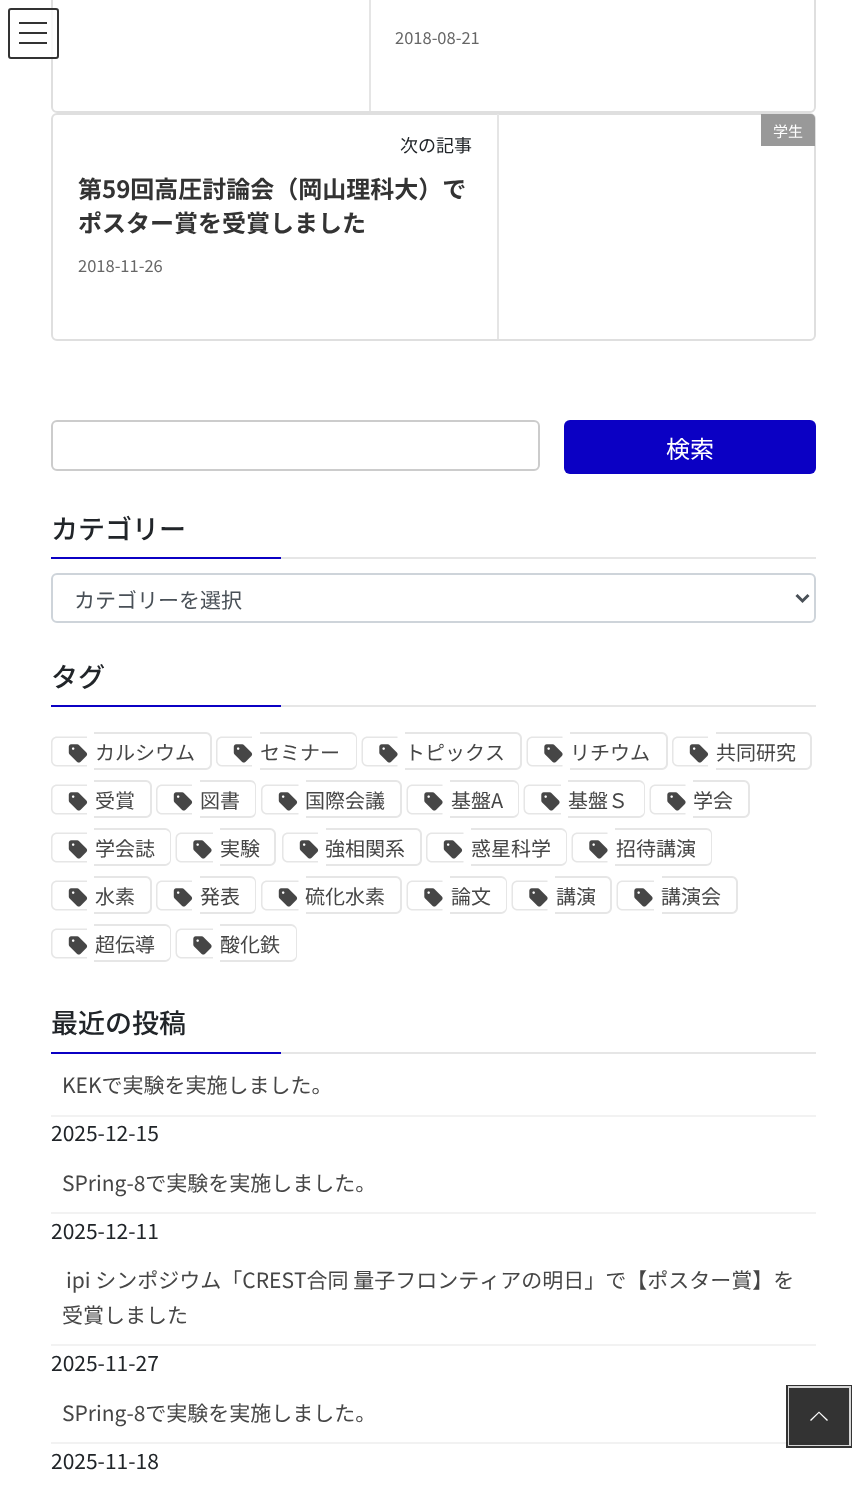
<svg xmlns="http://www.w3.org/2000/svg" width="866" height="1489">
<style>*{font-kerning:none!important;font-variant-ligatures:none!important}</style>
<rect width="100%" height="100%" fill="#fff"/>
<rect x="52" y="-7" width="763" height="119" rx="5" fill="none" stroke="#dfdfdf" stroke-width="2"/>
<rect x="8" y="8" width="51" height="51" rx="3" fill="#ffffffcc"/>
<rect x="19" y="22" width="28" height="2" fill="#333"/>
<rect x="19" y="32" width="28" height="2" fill="#333"/>
<rect x="19" y="42" width="28" height="2" fill="#333"/>
<rect x="9" y="9" width="49" height="49" rx="2" fill="none" stroke="#333" stroke-width="2"/>
<rect x="369" width="2" height="111" fill="#e5e5e5"/>
<text x="395" y="44" style="font-family:Noto Sans JP;font-size:16.5px;fill:#666">2018-08-21</text>
<rect x="52" y="114" width="763" height="226" rx="5" fill="none" stroke="#dfdfdf" stroke-width="2"/>
<rect x="497" y="114" width="2" height="225" fill="#e5e5e5"/>
<path d="M761 114h50c2 0 4 2 4 4v28h-54z" fill="#999"/>
<text x="773" y="137" style="font-family:Noto Sans JP;font-size:15px;fill:#fff">学生</text>
<text x="400" y="152" style="font-family:Noto Sans JP;font-size:18px;fill:#212529">次の記事</text>
<text x="78" y="198" style="font-family:Noto Sans JP;font-size:24px;font-weight:bold;fill:#333">第59回高圧討論会（岡山理科大）で</text>
<text x="78" y="232" style="font-family:Noto Sans JP;font-size:24px;font-weight:bold;fill:#333">ポスター賞を受賞しました</text>
<text x="78" y="272" style="font-family:Noto Sans JP;font-size:16.5px;fill:#666">2018-11-26</text>
<rect x="52" y="421" width="487" height="49" rx="5" fill="none" stroke="#ccc" stroke-width="2"/>
<rect x="564" y="420" width="252" height="54" rx="6" fill="#0b00c4"/>
<text x="666" y="458" style="font-family:Noto Sans JP;font-size:24px;fill:#fff">検索</text>
<rect x="281" y="557" width="535" height="2" fill="#e6e6e6"/>
<text x="51" y="539" style="font-family:Noto Sans JP;font-size:27px;font-weight:500;fill:#212529">カテゴリー</text>
<rect x="51" y="557" width="230" height="2" fill="#0b00c4"/>
<rect x="52" y="574" width="763" height="48" rx="5" fill="none" stroke="#ced4da" stroke-width="2"/>
<path d="M796.5 595l6 6l6-6" fill="none" stroke="#495057" stroke-width="3"/>
<text x="74" y="608" style="font-family:Noto Sans JP;font-size:21px;fill:#495057">カテゴリーを選択</text>
<rect x="281" y="705" width="535" height="2" fill="#e6e6e6"/>
<text x="51" y="687" style="font-family:Noto Sans JP;font-size:27px;font-weight:500;fill:#212529">タグ</text>
<rect x="51" y="705" width="230" height="2" fill="#0b00c4"/>
<path d="M57 736.5h30v30h-30c-3.5 0-6-2.5-6-6v-18c0-3.5 2.5-6 6-6zm0 1.5h30v27h-30c-2.5 0-4.5-2-4.5-4.5v-18c0-2.5 2-4.5 4.5-4.5z" fill="#e6e6e6" fill-rule="evenodd"/>
<image x="68" y="744" width="20" height="19" href="media/1.png"/>
<path d="M94 732h112c3 0 6 3 6 6v26c0 3-3 6-6 6h-112zm0 2h112c2 0 4 2 4 4v26c0 2-2 4-4 4h-112z" fill="#e6e6e6" fill-rule="evenodd"/>
<text x="95" y="760" style="font-family:Noto Sans JP;font-size:20px;fill:#464646">カルシウム</text>
<path d="M222 736.5h30v30h-30c-3.5 0-6-2.5-6-6v-18c0-3.5 2.5-6 6-6zm0 1.5h30v27h-30c-2.5 0-4.5-2-4.5-4.5v-18c0-2.5 2-4.5 4.5-4.5z" fill="#e6e6e6" fill-rule="evenodd"/>
<image x="233" y="744" width="20" height="19" href="media/1.png"/>
<path d="M260 732h91c3 0 6 3 6 6v26c0 3-3 6-6 6h-91zm0 2h91c2 0 5 2 5 4v26c0 2-3 4-5 4h-91z" fill="#e6e6e6" fill-rule="evenodd"/>
<text x="260" y="760" style="font-family:Noto Sans JP;font-size:20px;fill:#464646">セミナー</text>
<path d="M367.5 736.5h30v30h-30c-3.5 0-6-2.5-6-6v-18c0-3.5 2.5-6 6-6zm0 1.5h30v27h-30c-2.5 0-4.5-2-4.5-4.5v-18c0-2.5 2-4.5 4.5-4.5z" fill="#e6e6e6" fill-rule="evenodd"/>
<image x="379" y="744" width="19" height="19" href="media/2.png"/>
<path d="M405 732h111c3 0 6 3 6 6v26c0 3-3 6-6 6h-111zm0 2h111c2 0 4 2 4 4v26c0 2-2 4-4 4h-111z" fill="#e6e6e6" fill-rule="evenodd"/>
<text x="405" y="760" style="font-family:Noto Sans JP;font-size:20px;fill:#464646">トピックス</text>
<path d="M532.5 736.5h30v30h-30c-3.5 0-6-2.5-6-6v-18c0-3.5 2.5-6 6-6zm0 1.5h30v27h-30c-2.5 0-4.5-2-4.5-4.5v-18c0-2.5 2-4.5 4.5-4.5z" fill="#e6e6e6" fill-rule="evenodd"/>
<image x="544" y="744" width="19" height="19" href="media/2.png"/>
<path d="M570 732h92c3 0 6 3 6 6v26c0 3-3 6-6 6h-92zm0 2h92c2 0 4 2 4 4v26c0 2-2 4-4 4h-92z" fill="#e6e6e6" fill-rule="evenodd"/>
<text x="570" y="760" style="font-family:Noto Sans JP;font-size:20px;fill:#464646">リチウム</text>
<path d="M678 736.5h30v30h-30c-3.5 0-6-2.5-6-6v-18c0-3.5 2.5-6 6-6zm0 1.5h30v27h-30c-2.5 0-4.5-2-4.5-4.5v-18c0-2.5 2-4.5 4.5-4.5z" fill="#e6e6e6" fill-rule="evenodd"/>
<image x="689" y="744" width="20" height="19" href="media/1.png"/>
<path d="M716 732h90c3 0 6 3 6 6v26c0 3-3 6-6 6h-90zm0 2h90c2 0 4 2 4 4v26c0 2-2 4-4 4h-90z" fill="#e6e6e6" fill-rule="evenodd"/>
<text x="716" y="760" style="font-family:Noto Sans JP;font-size:20px;fill:#464646">共同研究</text>
<path d="M57 784.5h30v30h-30c-3.5 0-6-2.5-6-6v-18c0-3.5 2.5-6 6-6zm0 1.5h30v27h-30c-2.5 0-4.5-2-4.5-4.5v-18c0-2.5 2-4.5 4.5-4.5z" fill="#e6e6e6" fill-rule="evenodd"/>
<image x="68" y="792" width="20" height="19" href="media/1.png"/>
<path d="M94 780h52c3 0 6 3 6 6v26c0 3-3 6-6 6h-52zm0 2h52c2 0 4 2 4 4v26c0 2-2 4-4 4h-52z" fill="#e6e6e6" fill-rule="evenodd"/>
<text x="95" y="808" style="font-family:Noto Sans JP;font-size:20px;fill:#464646">受賞</text>
<path d="M162 784.5h30v30h-30c-3.5 0-6-2.5-6-6v-18c0-3.5 2.5-6 6-6zm0 1.5h30v27h-30c-2.5 0-4.5-2-4.5-4.5v-18c0-2.5 2-4.5 4.5-4.5z" fill="#e6e6e6" fill-rule="evenodd"/>
<image x="173" y="792" width="20" height="19" href="media/1.png"/>
<path d="M200 780h50c4 0 6 3 6 6v26c0 3-2 6-6 6h-50zm0 2h50c3 0 5 2 5 4v26c0 2-2 4-5 4h-50z" fill="#e6e6e6" fill-rule="evenodd"/>
<text x="200" y="808" style="font-family:Noto Sans JP;font-size:20px;fill:#464646">図書</text>
<path d="M267 784.5h31.5v30h-31.5c-3.5 0-6-2.5-6-6v-18c0-3.5 2.5-6 6-6zm0 1.5h31.5v27h-31.5c-2.5 0-4.5-2-4.5-4.5v-18c0-2.5 2-4.5 4.5-4.5z" fill="#e6e6e6" fill-rule="evenodd"/>
<image x="278" y="792" width="20" height="19" href="media/1.png"/>
<path d="M306 780h90c3 0 6 3 6 6v26c0 3-3 6-6 6h-90zm0 2h90c2 0 4 2 4 4v26c0 2-2 4-4 4h-90z" fill="#e6e6e6" fill-rule="evenodd"/>
<text x="305" y="808" style="font-family:Noto Sans JP;font-size:20px;fill:#464646">国際会議</text>
<path d="M412.5 784.5h30v30h-30c-3.5 0-6-2.5-6-6v-18c0-3.5 2.5-6 6-6zm0 1.5h30v27h-30c-2.5 0-4.5-2-4.5-4.5v-18c0-2.5 2-4.5 4.5-4.5z" fill="#e6e6e6" fill-rule="evenodd"/>
<image x="424" y="792" width="19" height="19" href="media/2.png"/>
<path d="M450 780h63c3 0 6 3 6 6v26c0 3-3 6-6 6h-63zm0 2h63c2 0 5 2 5 4v26c0 2-3 4-5 4h-63z" fill="#e6e6e6" fill-rule="evenodd"/>
<text x="451" y="808" style="font-family:Noto Sans JP;font-size:20px;fill:#464646">基盤A</text>
<path d="M529.5 784.5h31.5v30h-31.5c-3.5 0-6-2.5-6-6v-18c0-3.5 2.5-6 6-6zm0 1.5h31.5v27h-31.5c-2.5 0-4.5-2-4.5-4.5v-18c0-2.5 2-4.5 4.5-4.5z" fill="#e6e6e6" fill-rule="evenodd"/>
<image x="541" y="792" width="19" height="19" href="media/2.png"/>
<path d="M568 780h71c3 0 6 3 6 6v26c0 3-3 6-6 6h-71zm0 2h71c2 0 5 2 5 4v26c0 2-3 4-5 4h-71z" fill="#e6e6e6" fill-rule="evenodd"/>
<text x="568" y="808" style="font-family:Noto Sans JP;font-size:20px;fill:#464646">基盤Ｓ</text>
<path d="M655.5 784.5h30v30h-30c-3.5 0-6-2.5-6-6v-18c0-3.5 2.5-6 6-6zm0 1.5h30v27h-30c-2.5 0-4.5-2-4.5-4.5v-18c0-2.5 2-4.5 4.5-4.5z" fill="#e6e6e6" fill-rule="evenodd"/>
<image x="667" y="792" width="19" height="19" href="media/2.png"/>
<path d="M693 780h51c3 0 6 3 6 6v26c0 3-3 6-6 6h-51zm0 2h51c2 0 4 2 4 4v26c0 2-2 4-4 4h-51z" fill="#e6e6e6" fill-rule="evenodd"/>
<text x="693" y="808" style="font-family:Noto Sans JP;font-size:20px;fill:#464646">学会</text>
<path d="M57 832.5h30v30h-30c-3.5 0-6-2.5-6-6v-18c0-3.5 2.5-6 6-6zm0 1.5h30v27h-30c-2.5 0-4.5-2-4.5-4.5v-18c0-2.5 2-4.5 4.5-4.5z" fill="#e6e6e6" fill-rule="evenodd"/>
<image x="68" y="840" width="20" height="19" href="media/1.png"/>
<path d="M94 828h71c3 0 6 3 6 6v26c0 3-3 6-6 6h-71zm0 2h71c2 0 5 2 5 4v26c0 2-3 4-5 4h-71z" fill="#e6e6e6" fill-rule="evenodd"/>
<text x="95" y="856" style="font-family:Noto Sans JP;font-size:20px;fill:#464646">学会誌</text>
<path d="M181.5 832.5h31.5v30h-31.5c-3.5 0-6-2.5-6-6v-18c0-3.5 2.5-6 6-6zm0 1.5h31.5v27h-31.5c-2.5 0-4.5-2-4.5-4.5v-18c0-2.5 2-4.5 4.5-4.5z" fill="#e6e6e6" fill-rule="evenodd"/>
<image x="193" y="840" width="19" height="19" href="media/2.png"/>
<path d="M220 828h50c3 0 6 3 6 6v26c0 3-3 6-6 6h-50zm0 2h50c2 0 4 2 4 4v26c0 2-2 4-4 4h-50z" fill="#e6e6e6" fill-rule="evenodd"/>
<text x="220" y="856" style="font-family:Noto Sans JP;font-size:20px;fill:#464646">実験</text>
<path d="M288 832.5h30v30h-30c-3.5 0-6-2.5-6-6v-18c0-3.5 2.5-6 6-6zm0 1.5h30v27h-30c-2.5 0-4.5-2-4.5-4.5v-18c0-2.5 2-4.5 4.5-4.5z" fill="#e6e6e6" fill-rule="evenodd"/>
<image x="299" y="840" width="20" height="19" href="media/1.png"/>
<path d="M326 828h90c3 0 6 3 6 6v26c0 3-3 6-6 6h-90zm0 2h90c2 0 4 2 4 4v26c0 2-2 4-4 4h-90z" fill="#e6e6e6" fill-rule="evenodd"/>
<text x="325" y="856" style="font-family:Noto Sans JP;font-size:20px;fill:#464646">強相関系</text>
<path d="M432 832.5h31.5v30h-31.5c-3.5 0-6-2.5-6-6v-18c0-3.5 2.5-6 6-6zm0 1.5h31.5v27h-31.5c-2.5 0-4.5-2-4.5-4.5v-18c0-2.5 2-4.5 4.5-4.5z" fill="#e6e6e6" fill-rule="evenodd"/>
<image x="443" y="840" width="20" height="19" href="media/1.png"/>
<path d="M471 828h90c3 0 6 3 6 6v26c0 3-3 6-6 6h-90zm0 2h90c2 0 5 2 5 4v26c0 2-3 4-5 4h-90z" fill="#e6e6e6" fill-rule="evenodd"/>
<text x="471" y="856" style="font-family:Noto Sans JP;font-size:20px;fill:#464646">惑星科学</text>
<path d="M577.5 832.5h30v30h-30c-3.5 0-6-2.5-6-6v-18c0-3.5 2.5-6 6-6zm0 1.5h30v27h-30c-2.5 0-4.5-2-4.5-4.5v-18c0-2.5 2-4.5 4.5-4.5z" fill="#e6e6e6" fill-rule="evenodd"/>
<image x="589" y="840" width="19" height="19" href="media/2.png"/>
<path d="M615 828h91c4 0 6 3 6 6v26c0 3-2 6-6 6h-91zm0 2h91c3 0 5 2 5 4v26c0 2-2 4-5 4h-91z" fill="#e6e6e6" fill-rule="evenodd"/>
<text x="616" y="856" style="font-family:Noto Sans JP;font-size:20px;fill:#464646">招待講演</text>
<path d="M57 880.5h30v30h-30c-3.5 0-6-2.5-6-6v-18c0-3.5 2.5-6 6-6zm0 1.5h30v27h-30c-2.5 0-4.5-2-4.5-4.5v-18c0-2.5 2-4.5 4.5-4.5z" fill="#e6e6e6" fill-rule="evenodd"/>
<image x="68" y="888" width="20" height="19" href="media/1.png"/>
<path d="M94 876h52c3 0 6 3 6 6v26c0 3-3 6-6 6h-52zm0 2h52c2 0 4 2 4 4v26c0 2-2 4-4 4h-52z" fill="#e6e6e6" fill-rule="evenodd"/>
<text x="95" y="904" style="font-family:Noto Sans JP;font-size:20px;fill:#464646">水素</text>
<path d="M162 880.5h30v30h-30c-3.5 0-6-2.5-6-6v-18c0-3.5 2.5-6 6-6zm0 1.5h30v27h-30c-2.5 0-4.5-2-4.5-4.5v-18c0-2.5 2-4.5 4.5-4.5z" fill="#e6e6e6" fill-rule="evenodd"/>
<image x="173" y="888" width="20" height="19" href="media/1.png"/>
<path d="M200 876h50c4 0 6 3 6 6v26c0 3-2 6-6 6h-50zm0 2h50c3 0 5 2 5 4v26c0 2-2 4-5 4h-50z" fill="#e6e6e6" fill-rule="evenodd"/>
<text x="200" y="904" style="font-family:Noto Sans JP;font-size:20px;fill:#464646">発表</text>
<path d="M267 880.5h31.5v30h-31.5c-3.5 0-6-2.5-6-6v-18c0-3.5 2.5-6 6-6zm0 1.5h31.5v27h-31.5c-2.5 0-4.5-2-4.5-4.5v-18c0-2.5 2-4.5 4.5-4.5z" fill="#e6e6e6" fill-rule="evenodd"/>
<image x="278" y="888" width="20" height="19" href="media/1.png"/>
<path d="M306 876h90c3 0 6 3 6 6v26c0 3-3 6-6 6h-90zm0 2h90c2 0 4 2 4 4v26c0 2-2 4-4 4h-90z" fill="#e6e6e6" fill-rule="evenodd"/>
<text x="305" y="904" style="font-family:Noto Sans JP;font-size:20px;fill:#464646">硫化水素</text>
<path d="M412.5 880.5h30v30h-30c-3.5 0-6-2.5-6-6v-18c0-3.5 2.5-6 6-6zm0 1.5h30v27h-30c-2.5 0-4.5-2-4.5-4.5v-18c0-2.5 2-4.5 4.5-4.5z" fill="#e6e6e6" fill-rule="evenodd"/>
<image x="424" y="888" width="19" height="19" href="media/2.png"/>
<path d="M450 876h51c3 0 6 3 6 6v26c0 3-3 6-6 6h-51zm0 2h51c2 0 5 2 5 4v26c0 2-3 4-5 4h-51z" fill="#e6e6e6" fill-rule="evenodd"/>
<text x="451" y="904" style="font-family:Noto Sans JP;font-size:20px;fill:#464646">論文</text>
<path d="M517.5 880.5h30v30h-30c-3.5 0-6-2.5-6-6v-18c0-3.5 2.5-6 6-6zm0 1.5h30v27h-30c-2.5 0-4.5-2-4.5-4.5v-18c0-2.5 2-4.5 4.5-4.5z" fill="#e6e6e6" fill-rule="evenodd"/>
<image x="529" y="888" width="19" height="19" href="media/2.png"/>
<path d="M555 876h51c3 0 6 3 6 6v26c0 3-3 6-6 6h-51zm0 2h51c2 0 4 2 4 4v26c0 2-2 4-4 4h-51z" fill="#e6e6e6" fill-rule="evenodd"/>
<text x="556" y="904" style="font-family:Noto Sans JP;font-size:20px;fill:#464646">講演</text>
<path d="M622.5 880.5h31.5v30h-31.5c-3.5 0-6-2.5-6-6v-18c0-3.5 2.5-6 6-6zm0 1.5h31.5v27h-31.5c-2.5 0-4.5-2-4.5-4.5v-18c0-2.5 2-4.5 4.5-4.5z" fill="#e6e6e6" fill-rule="evenodd"/>
<image x="634" y="888" width="19" height="19" href="media/2.png"/>
<path d="M662 876h70c3 0 6 3 6 6v26c0 3-3 6-6 6h-70zm0 2h70c2 0 4 2 4 4v26c0 2-2 4-4 4h-70z" fill="#e6e6e6" fill-rule="evenodd"/>
<text x="661" y="904" style="font-family:Noto Sans JP;font-size:20px;fill:#464646">講演会</text>
<path d="M57 928.5h30v30h-30c-3.5 0-6-2.5-6-6v-18c0-3.5 2.5-6 6-6zm0 1.5h30v27h-30c-2.5 0-4.5-2-4.5-4.5v-18c0-2.5 2-4.5 4.5-4.5z" fill="#e6e6e6" fill-rule="evenodd"/>
<image x="68" y="936" width="20" height="19" href="media/1.png"/>
<path d="M94 924h71c3 0 6 3 6 6v26c0 3-3 6-6 6h-71zm0 2h71c2 0 5 2 5 4v26c0 2-3 4-5 4h-71z" fill="#e6e6e6" fill-rule="evenodd"/>
<text x="95" y="952" style="font-family:Noto Sans JP;font-size:20px;fill:#464646">超伝導</text>
<path d="M181.5 928.5h31.5v30h-31.5c-3.5 0-6-2.5-6-6v-18c0-3.5 2.5-6 6-6zm0 1.5h31.5v27h-31.5c-2.5 0-4.5-2-4.5-4.5v-18c0-2.5 2-4.5 4.5-4.5z" fill="#e6e6e6" fill-rule="evenodd"/>
<image x="193" y="936" width="19" height="19" href="media/2.png"/>
<path d="M220 924h71c3 0 6 3 6 6v26c0 3-3 6-6 6h-71zm0 2h71c2 0 5 2 5 4v26c0 2-3 4-5 4h-71z" fill="#e6e6e6" fill-rule="evenodd"/>
<text x="220" y="952" style="font-family:Noto Sans JP;font-size:20px;fill:#464646">酸化鉄</text>
<rect x="281" y="1052" width="535" height="2" fill="#e6e6e6"/>
<text x="51" y="1033" style="font-family:Noto Sans JP;font-size:27px;font-weight:500;fill:#212529">最近の投稿</text>
<rect x="51" y="1052" width="230" height="2" fill="#0b00c4"/>
<rect x="51" y="1115" width="765" height="2" fill="#f2f2f2"/>
<text x="62" y="1093" style="font-family:Noto Sans JP;font-size:21px;fill:#464646">KEKで実験を実施しました。</text>
<text x="51" y="1141" style="font-family:Noto Sans JP;font-size:21px;fill:#212529">2025-12-15</text>
<rect x="51" y="1212" width="765" height="2" fill="#f2f2f2"/>
<text x="62" y="1191" style="font-family:Noto Sans JP;font-size:21px;fill:#464646">SPring-8で実験を実施しました。</text>
<text x="51" y="1239" style="font-family:Noto Sans JP;font-size:21px;fill:#212529">2025-12-11</text>
<rect x="51" y="1344" width="765" height="2" fill="#f2f2f2"/>
<text x="66" y="1288" style="font-family:Noto Sans JP;font-size:21px;fill:#464646">ipi シンポジウム「CREST合同 量子フロンティアの明日」で【ポスター賞】を</text>
<text x="62" y="1323" style="font-family:Noto Sans JP;font-size:21px;fill:#464646">受賞しました</text>
<text x="51" y="1371" style="font-family:Noto Sans JP;font-size:21px;fill:#212529">2025-11-27</text>
<rect x="51" y="1442" width="765" height="2" fill="#f2f2f2"/>
<text x="62" y="1421" style="font-family:Noto Sans JP;font-size:21px;fill:#464646">SPring-8で実験を実施しました。</text>
<text x="51" y="1469" style="font-family:Noto Sans JP;font-size:21px;fill:#212529">2025-11-18</text>
<rect x="787.5" y="1386.5" width="63" height="60" fill="none" stroke="#000000cc" stroke-width="3"/>
<rect x="789" y="1387" width="61" height="58" fill="none" stroke="#ffffffcc" stroke-width="2"/>
<rect x="789" y="1388" width="60" height="57" fill="#000000cc"/>
<path d="M828 1420l-1 1l-8-8l-8 8l-1-1l9-8.5z" fill="#fff"/>
</svg>
